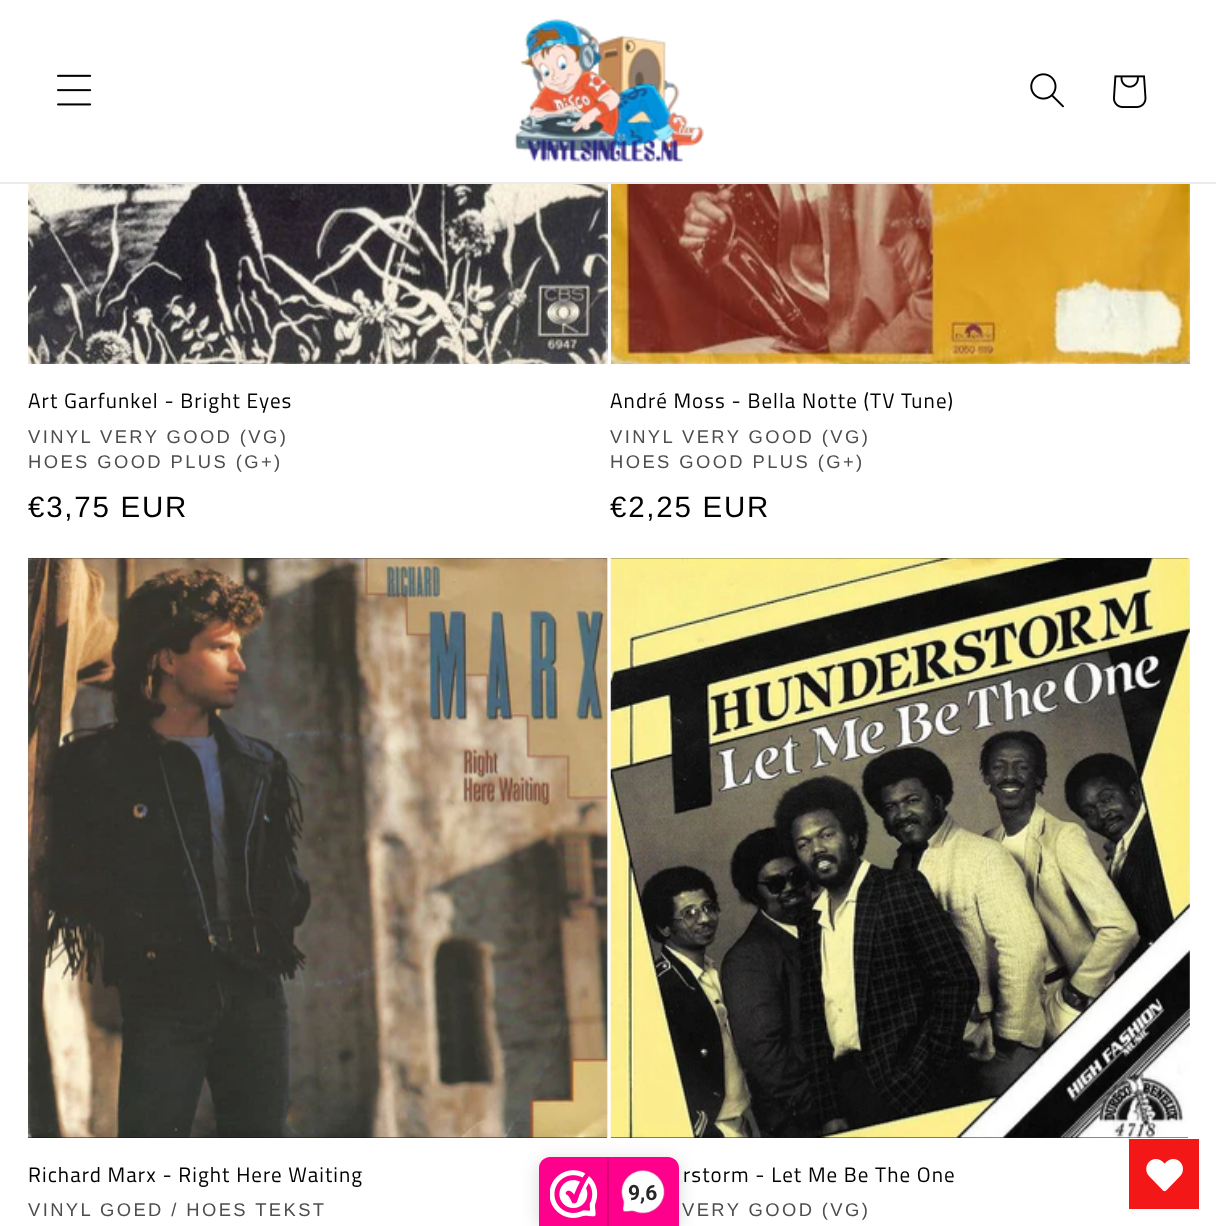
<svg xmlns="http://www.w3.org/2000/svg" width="1216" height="1226">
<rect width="100%" height="100%" fill="#fff"/>
<rect y="182" width="1216" height="2" fill="#ebebeb"/>
<image x="57" y="74" width="35" height="32" href="media/1.png"/>
<image x="514" y="19" width="190" height="143" href="media/2.png"/>
<image x="1030" y="73" width="34" height="35" href="media/3.png"/>
<image x="1113" y="75" width="34" height="33" href="media/4.png"/>
<image x="28" y="184" width="580" height="180" href="media/5.png"/>
<text x="28" y="408" style="font-family:Titillium Web;font-size:21px;letter-spacing:1.05px;fill:#000">Art Garfunkel - Bright Eyes</text>
<text x="28" y="443" style="font-family:Liberation Sans;font-size:18.4px;letter-spacing:2.4px;fill:#4d4d4d">VINYL VERY GOOD (VG)</text>
<text x="28" y="468" style="font-family:Liberation Sans;font-size:18.4px;letter-spacing:2.4px;fill:#4d4d4d">HOES GOOD PLUS (G+)</text>
<text x="28" y="517" style="font-family:Liberation Sans;font-size:29.5px;letter-spacing:1.75px;fill:#000">€3,75 EUR</text>
<image x="611" y="184" width="579" height="180" href="media/6.png"/>
<text x="610" y="408" style="font-family:Titillium Web;font-size:21px;letter-spacing:1.05px;fill:#000">André Moss - Bella Notte (TV Tune)</text>
<text x="610" y="443" style="font-family:Liberation Sans;font-size:18.4px;letter-spacing:2.4px;fill:#4d4d4d">VINYL VERY GOOD (VG)</text>
<text x="610" y="468" style="font-family:Liberation Sans;font-size:18.4px;letter-spacing:2.4px;fill:#4d4d4d">HOES GOOD PLUS (G+)</text>
<text x="610" y="517" style="font-family:Liberation Sans;font-size:29.5px;letter-spacing:1.75px;fill:#000">€2,25 EUR</text>
<rect x="28" y="558" width="579" height="580" fill="#121212"/>
<image x="28" y="558" width="580" height="580" href="media/7.png"/>
<text x="28" y="1182" style="font-family:Titillium Web;font-size:21px;letter-spacing:1.05px;fill:#000">Richard Marx - Right Here Waiting</text>
<text x="28" y="1216" style="font-family:Liberation Sans;font-size:18.4px;letter-spacing:2.4px;fill:#4d4d4d">VINYL GOED / HOES TEKST</text>
<rect x="611" y="558" width="577" height="580" fill="#121212"/>
<image x="610" y="558" width="580" height="580" href="media/8.png"/>
<text x="683" y="1182" style="font-family:Titillium Web;font-size:21px;letter-spacing:1.05px;fill:#000">rstorm - Let Me Be The One</text>
<text x="682" y="1216" style="font-family:Liberation Sans;font-size:18.4px;letter-spacing:2.4px;fill:#4d4d4d">VERY GOOD (VG)</text>
<rect x="1129" y="1139" width="70" height="70" fill="#f31717"/>
<image x="1146" y="1159" width="37" height="33" href="media/9.png"/>
<rect x="539" y="1160" width="140" height="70" rx="11" fill="#00000026" filter="blur(9px)"/>
<path d="M550 1157h118c6 0 11 5 11 11v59h-140v-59c0-6 5-11 11-11z" fill="#fe008c"/>
<image x="550" y="1170" width="48" height="48" href="media/10.png"/>
<rect x="607" y="1159" width="2" height="67" fill="#d80077"/>
<image x="621" y="1170" width="44" height="44" href="media/11.png"/>
<text x="628" y="1200" style="font-family:Roboto;font-size:21px;font-weight:bold;fill:#272626">9,6</text>
</svg>
